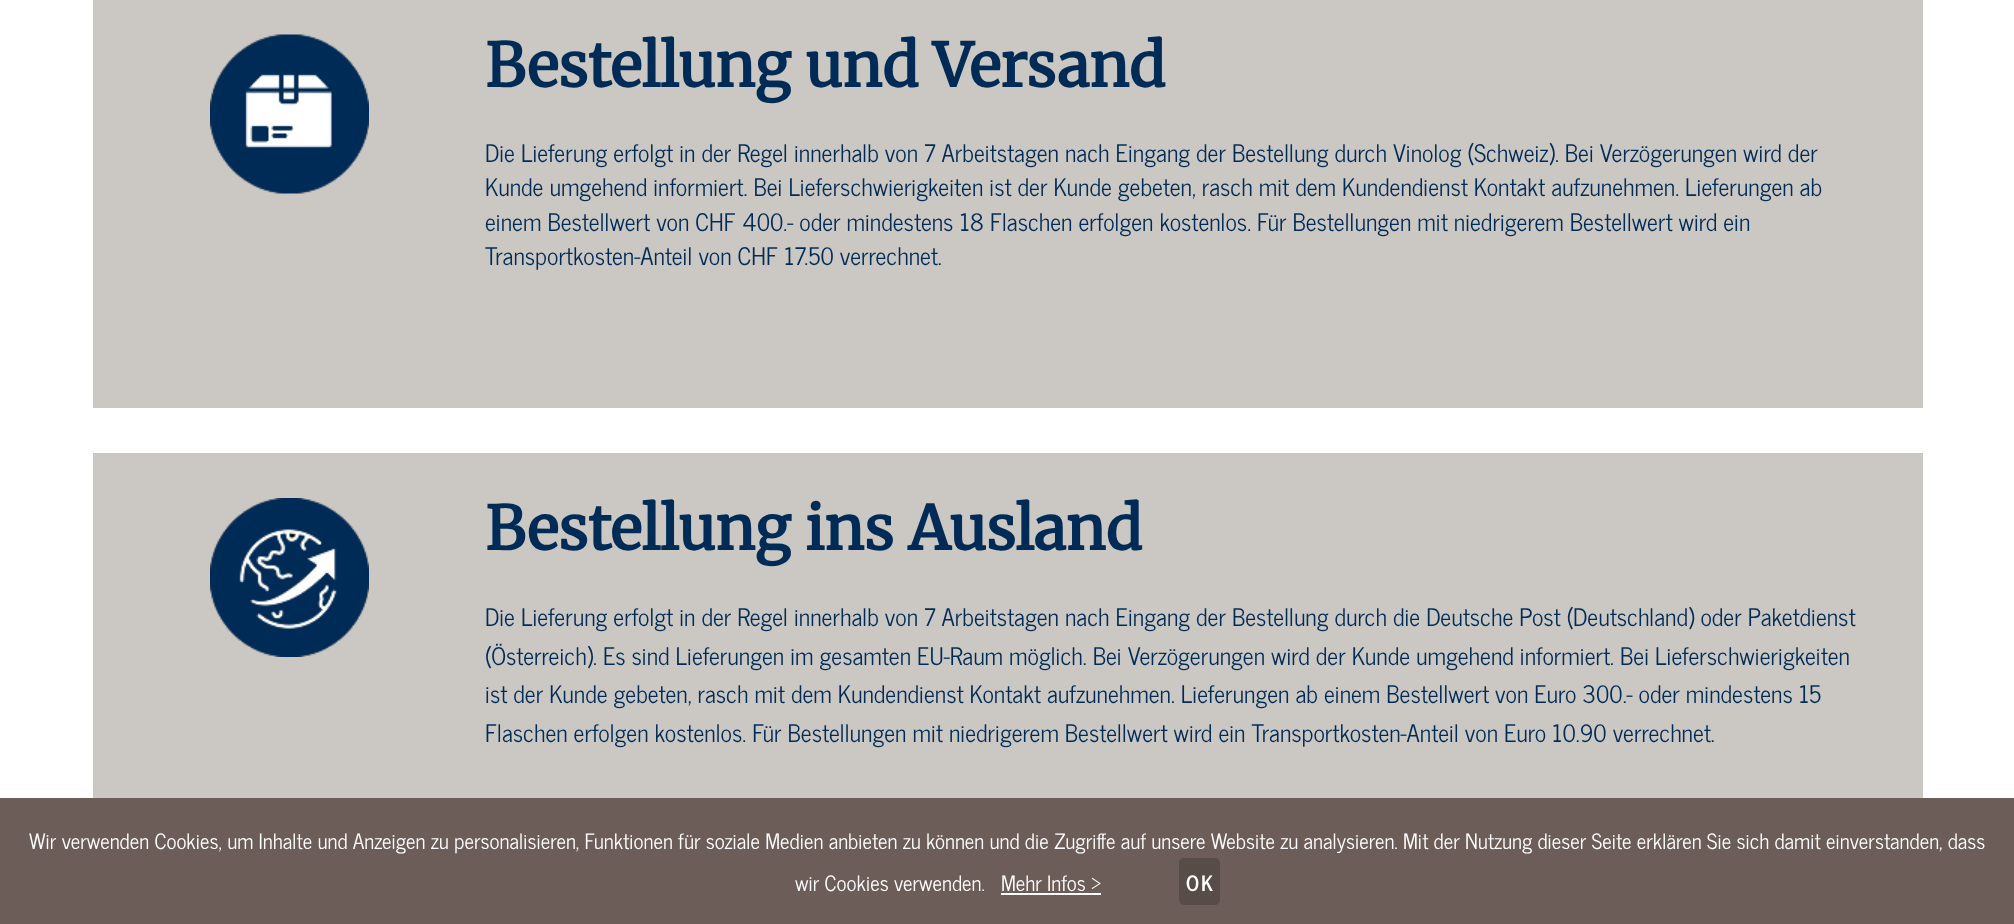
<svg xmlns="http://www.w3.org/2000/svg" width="2014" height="924">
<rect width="100%" height="100%" fill="#fff"/>
<rect x="93" width="1830" height="408" fill="#cbc8c4"/>
<image x="210" y="34" width="159" height="160" href="media/1.png"/>
<text x="485" y="87" style="font-family:Merriweather;font-size:60px;font-weight:bold;fill:#002b56">Bestellung und Versand</text>
<text x="485" y="162" style="font-family:News Cycle;font-size:24px;fill:#002b56">Die Lieferung erfolgt in der Regel innerhalb von 7 Arbeitstagen nach Eingang der Bestellung durch Vinolog (Schweiz). Bei Verzögerungen wird der</text>
<text x="485" y="196" style="font-family:News Cycle;font-size:24px;fill:#002b56">Kunde umgehend informiert. Bei Lieferschwierigkeiten ist der Kunde gebeten, rasch mit dem Kundendienst Kontakt aufzunehmen. Lieferungen ab</text>
<text x="485" y="231" style="font-family:News Cycle;font-size:24px;fill:#002b56">einem Bestellwert von CHF 400.- oder mindestens 18 Flaschen erfolgen kostenlos. Für Bestellungen mit niedrigerem Bestellwert wird ein</text>
<text x="485" y="265" style="font-family:News Cycle;font-size:24px;fill:#002b56">Transportkosten-Anteil von CHF 17.50 verrechnet.</text>
<rect x="93" y="453" width="1830" height="345" fill="#cbc8c4"/>
<image x="210" y="498" width="159" height="159" href="media/2.png"/>
<text x="485" y="550" style="font-family:Merriweather;font-size:60px;font-weight:bold;fill:#002b56">Bestellung ins Ausland</text>
<text x="485" y="626" style="font-family:News Cycle;font-size:24px;fill:#002b56">Die Lieferung erfolgt in der Regel innerhalb von 7 Arbeitstagen nach Eingang der Bestellung durch die Deutsche Post (Deutschland) oder Paketdienst</text>
<text x="485" y="665" style="font-family:News Cycle;font-size:24px;fill:#002b56">(Österreich). Es sind Lieferungen im gesamten EU-Raum möglich. Bei Verzögerungen wird der Kunde umgehend informiert. Bei Lieferschwierigkeiten</text>
<text x="485" y="703" style="font-family:News Cycle;font-size:24px;fill:#002b56">ist der Kunde gebeten, rasch mit dem Kundendienst Kontakt aufzunehmen. Lieferungen ab einem Bestellwert von Euro 300.- oder mindestens 15</text>
<text x="485" y="742" style="font-family:News Cycle;font-size:24px;fill:#002b56">Flaschen erfolgen kostenlos. Für Bestellungen mit niedrigerem Bestellwert wird ein Transportkosten-Anteil von Euro 10.90 verrechnet.</text>
<rect y="798" width="2014" height="126" fill="#6c5d59"/>
<text x="29" y="849" style="font-family:News Cycle;font-size:21px;fill:#fff">Wir verwenden Cookies, um Inhalte und Anzeigen zu personalisieren, Funktionen für soziale Medien anbieten zu können und die Zugriffe auf unsere Website zu analysieren. Mit der Nutzung dieser Seite erklären Sie sich damit einverstanden, dass</text>
<text x="795" y="891" style="font-family:News Cycle;font-size:21px;fill:#fff">wir Cookies verwenden.</text>
<text x="1001" y="891" style="font-family:News Cycle;font-size:21px;fill:#fff">Mehr Infos &gt;</text>
<rect x="1001" y="893" width="100" height="2" fill="#fff"/>
<rect x="1179" y="858" width="41" height="47" rx="5" fill="#584c49"/>
<text x="1186" y="891" style="font-family:News Cycle;font-size:21px;font-weight:bold;letter-spacing:2px;fill:#fff">OK</text>
</svg>
